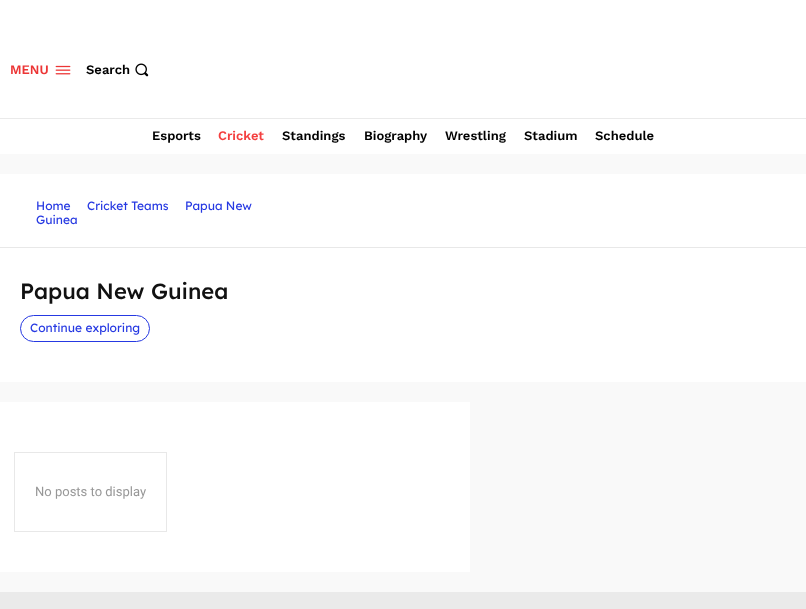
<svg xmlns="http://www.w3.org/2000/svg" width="806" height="609">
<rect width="100%" height="100%" fill="#fff"/>
<text x="10" y="74" style="font-family:Work Sans;font-size:13px;font-weight:600;fill:#ec3535">MENU</text>
<image x="55" y="65" width="16" height="10" href="media/1.png"/>
<text x="86" y="74" style="font-family:Work Sans;font-size:13px;font-weight:600;fill:#000">Search</text>
<image x="135" y="63" width="14" height="14" href="media/2.png"/>
<rect y="118" width="806" height="1" fill="#eaeaea"/>
<text x="152" y="140" style="font-family:Work Sans;font-size:13px;font-weight:600;fill:#000">Esports</text>
<text x="218" y="140" style="font-family:Work Sans;font-size:13px;font-weight:600;fill:#f43f3f">Cricket</text>
<text x="282" y="140" style="font-family:Work Sans;font-size:13px;font-weight:600;fill:#000">Standings</text>
<text x="364" y="140" style="font-family:Work Sans;font-size:13px;font-weight:600;fill:#000">Biography</text>
<text x="445" y="140" style="font-family:Work Sans;font-size:13px;font-weight:600;fill:#000">Wrestling</text>
<text x="524" y="140" style="font-family:Work Sans;font-size:13px;font-weight:600;fill:#000">Stadium</text>
<text x="595" y="140" style="font-family:Work Sans;font-size:13px;font-weight:600;fill:#000">Schedule</text>
<rect y="154" width="806" height="20" fill="#f9f9f9"/>
<rect y="247" width="806" height="1" fill="#e8e8e8"/>
<text x="36" y="210" style="font-family:Lexend;font-size:12px;fill:#2639e2">Home</text>
<text x="87" y="210" style="font-family:Lexend;font-size:12px;fill:#2639e2">Cricket Teams</text>
<text x="185" y="210" style="font-family:Lexend;font-size:12px;fill:#2639e2">Papua New</text>
<text x="36" y="224" style="font-family:Lexend;font-size:12px;fill:#2639e2">Guinea</text>
<text x="20" y="299" style="font-family:Lexend;font-size:22px;font-weight:500;fill:#111">Papua New Guinea</text>
<rect x="20.5" y="315.5" width="129" height="26" rx="13" fill="none" stroke="#2639e2"/>
<text x="30" y="332" style="font-family:Lexend;font-size:12px;fill:#2639e2">Continue exploring</text>
<rect y="382" width="806" height="210" fill="#f9f9f9"/>
<rect y="402" width="470" height="170" fill="#fff"/>
<rect x="14.5" y="452.5" width="152" height="79" fill="none" stroke="#e8e8e8"/>
<text x="35" y="496" style="font-family:Roboto;font-size:13px;fill:#979797">No posts to display</text>
<rect y="592" width="806" height="17" fill="#eaeaea"/>
</svg>
